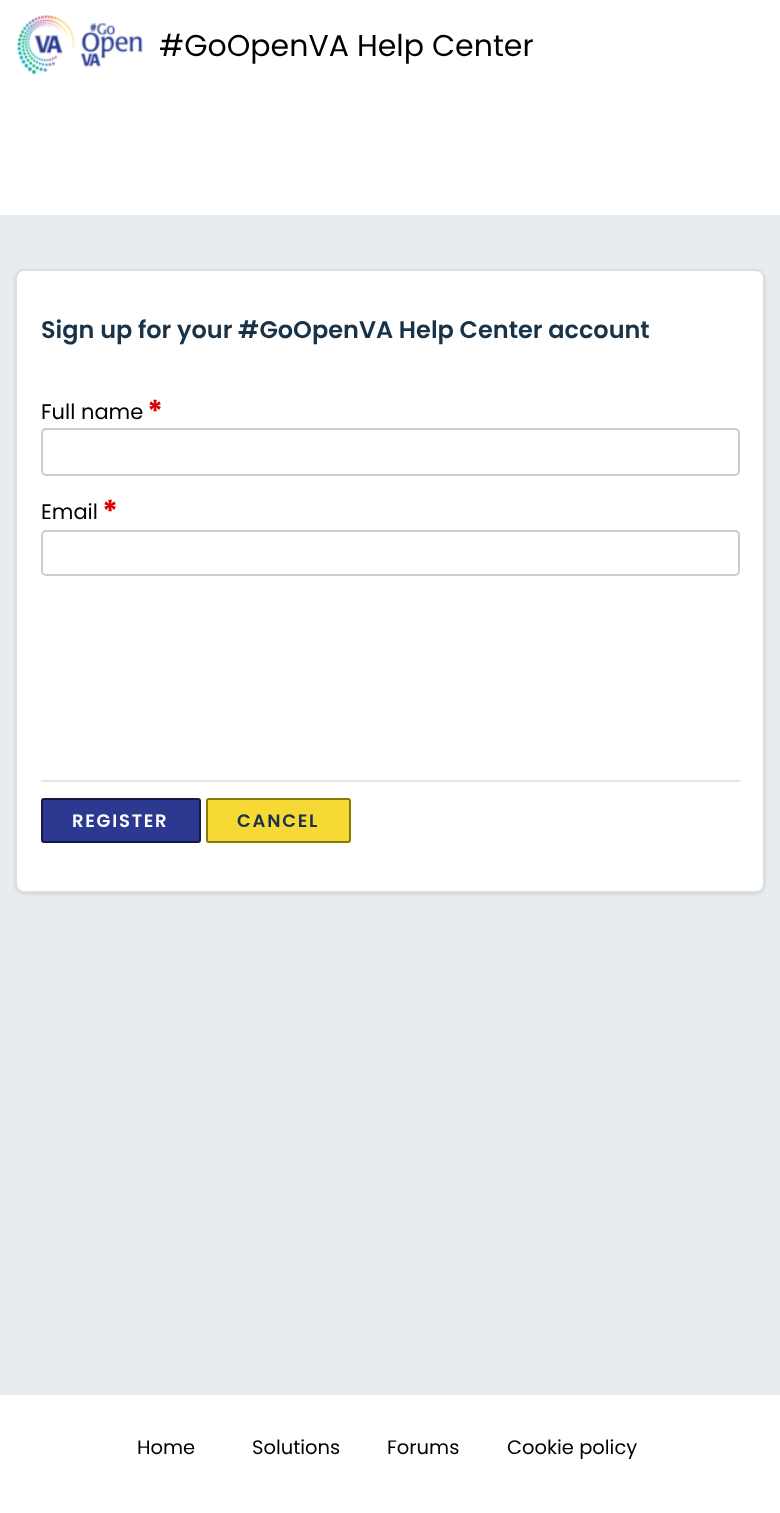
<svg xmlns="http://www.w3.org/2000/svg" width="780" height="1513">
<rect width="100%" height="100%" fill="#e8ecef"/>
<rect width="780" height="215" fill="#fff"/>
<image x="16" y="15" width="127" height="60" href="media/1.png"/>
<text x="159" y="56" style="font-family:Poppins;font-size:30px;fill:#000">#GoOpenVA Help Center</text>
<rect x="15" y="270" width="750" height="624" rx="9" fill="#3f3f4426" filter="blur(1.5px)"/>
<rect x="16" y="270" width="748" height="622" rx="8" fill="#fff" stroke="#dadfe3" stroke-width="2"/>
<text x="41" y="338" style="font-family:Poppins;font-size:24px;font-weight:600;fill:#183247">Sign up for your #GoOpenVA Help Center account</text>
<text x="41" y="419" style="font-family:Poppins;font-size:21px;fill:#000">Full name</text>
<text x="147" y="422" style="font-family:Poppins;font-size:30px;font-weight:bold;fill:#d00">*</text>
<rect x="42" y="429" width="697" height="46" rx="4" fill="none" stroke="#ccc" stroke-width="2"/>
<text x="41" y="519" style="font-family:Poppins;font-size:21px;fill:#000">Email</text>
<text x="102" y="522" style="font-family:Poppins;font-size:30px;font-weight:bold;fill:#d00">*</text>
<rect x="42" y="531" width="697" height="44" rx="4" fill="none" stroke="#ccc" stroke-width="2"/>
<rect x="41" y="780" width="699" height="2" fill="#e5e5e5"/>
<rect x="42" y="799" width="158" height="43" rx="2" fill="#2b3990" stroke="#141a41" stroke-width="2"/>
<text x="72" y="827" style="font-family:Poppins;font-size:18px;font-weight:600;letter-spacing:1.75px;fill:#fff">REGISTER</text>
<rect x="207" y="799" width="143" height="43" rx="2" fill="#f6d935" stroke="#8c7806" stroke-width="2"/>
<text x="237" y="827" style="font-family:Poppins;font-size:18px;font-weight:600;letter-spacing:1.75px;fill:#183247">CANCEL</text>
<rect y="1395" width="780" height="118" fill="#fff"/>
<text x="137" y="1454" style="font-family:Poppins;font-size:19.5px;fill:#000">Home</text>
<text x="252" y="1454" style="font-family:Poppins;font-size:19.5px;fill:#000">Solutions</text>
<text x="387" y="1454" style="font-family:Poppins;font-size:19.5px;fill:#000">Forums</text>
<text x="507" y="1454" style="font-family:Poppins;font-size:19.5px;fill:#000">Cookie policy</text>
</svg>
